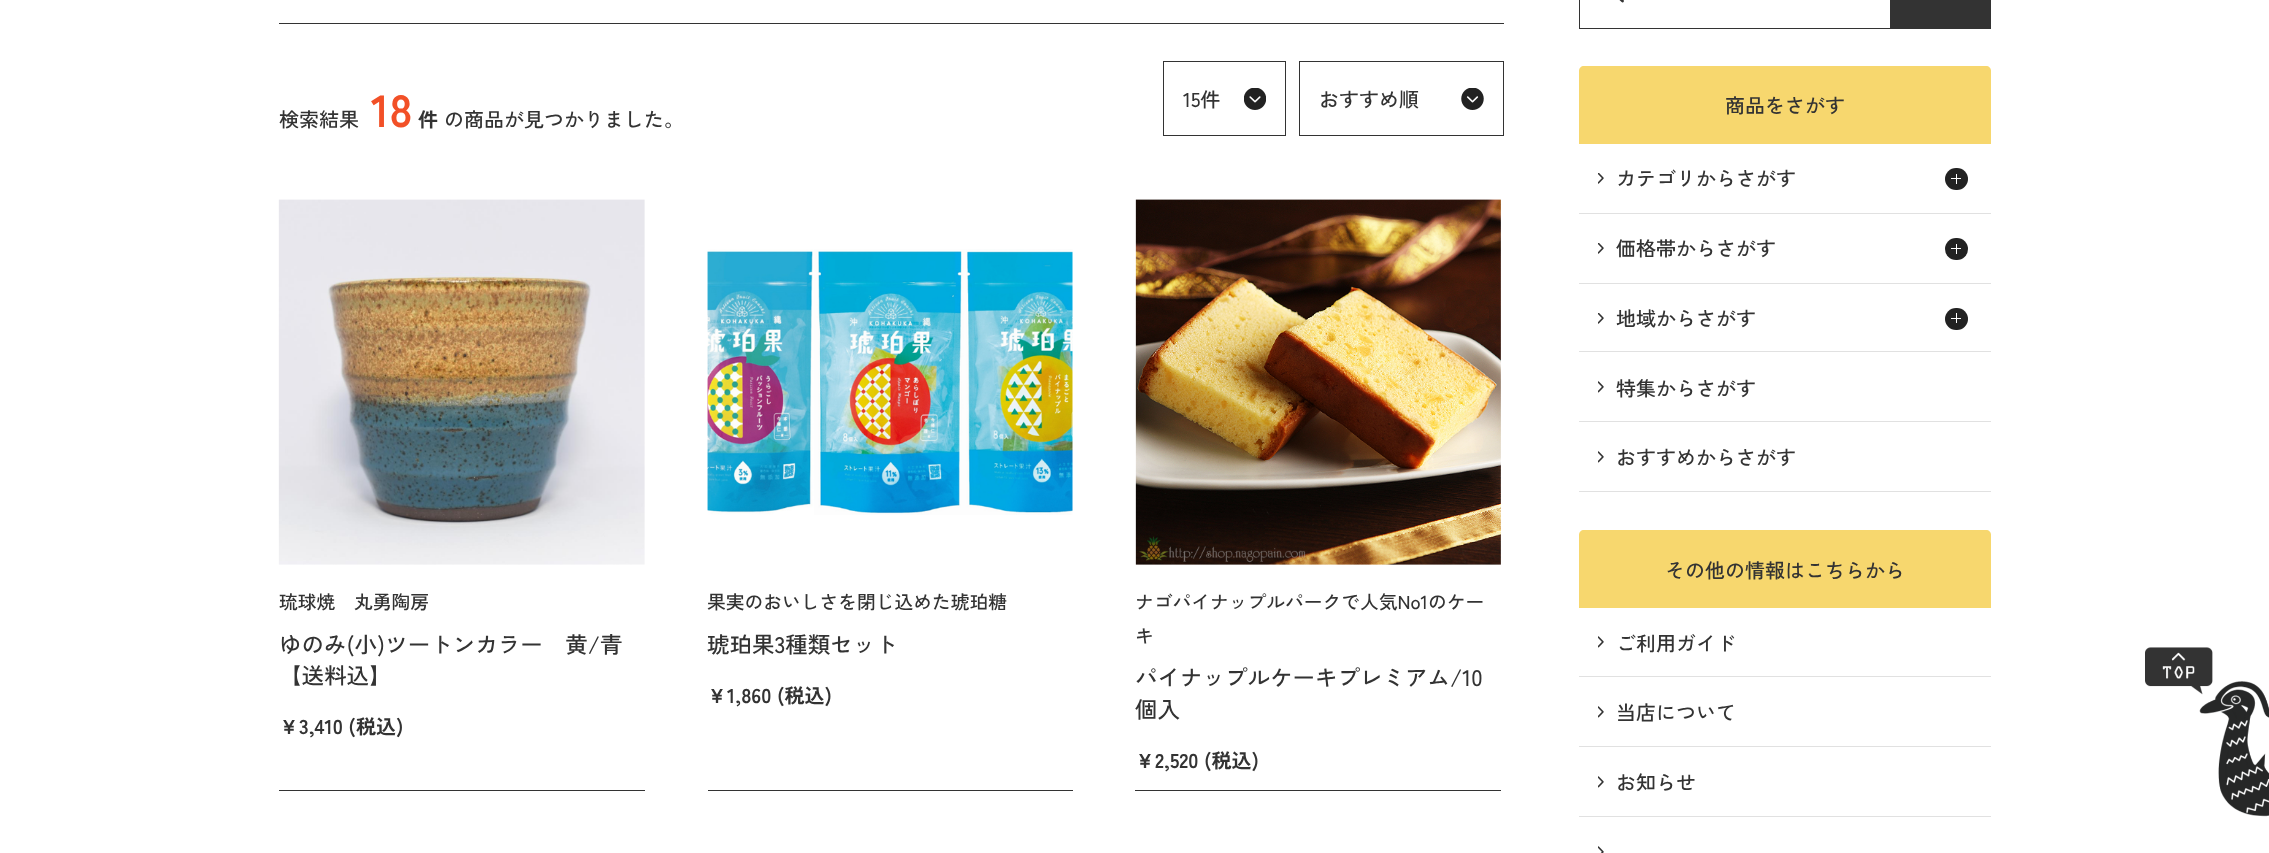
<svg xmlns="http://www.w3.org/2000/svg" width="2269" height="853">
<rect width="100%" height="100%" fill="#fff"/>
<rect x="279" y="23" width="1225" height="1" fill="#333"/>
<text x="279" y="127" style="font-family:Zen Kaku Gothic New;font-size:20px;font-weight:500;fill:#333">検索結果</text>
<text x="371" y="127" style="font-family:Zen Kaku Gothic New;font-size:45px;font-weight:bold;fill:#f25027">18</text>
<text x="418" y="127" style="font-family:Zen Kaku Gothic New;font-size:20px;font-weight:bold;fill:#333">件</text>
<text x="444" y="127" style="font-family:Zen Kaku Gothic New;font-size:20px;font-weight:500;fill:#333">の商品が見つかりました。</text>
<image x="1244" y="88" width="22" height="22" href="media/1.png"/>
<rect x="1163.5" y="61.5" width="122" height="74" fill="none" stroke="#333"/>
<text x="1183" y="107" style="font-family:Zen Kaku Gothic New;font-size:20px;font-weight:500;fill:#333">15件</text>
<image x="1461" y="88" width="23" height="22" href="media/2.png"/>
<rect x="1299.5" y="61.5" width="204" height="74" fill="none" stroke="#333"/>
<text x="1319" y="107" style="font-family:Zen Kaku Gothic New;font-size:20px;font-weight:500;fill:#333">おすすめ順</text>
<image x="278" y="199" width="367" height="366" href="media/3.png"/>
<rect x="279" y="790" width="366" height="1" fill="#333"/>
<text x="279" y="609" style="font-family:Zen Kaku Gothic New;font-size:18.75px;font-weight:500;fill:#333">琉球焼　丸勇陶房</text>
<text x="279" y="653" style="font-family:Zen Kaku Gothic New;font-size:22.5px;font-weight:500;fill:#333">ゆのみ(小)ツートンカラー　黄/青</text>
<text x="279" y="684" style="font-family:Zen Kaku Gothic New;font-size:22.5px;font-weight:500;fill:#333">【送料込】</text>
<text x="279" y="734" style="font-family:Zen Kaku Gothic New;font-size:20px;font-weight:bold;fill:#333">￥3,410 (税込)</text>
<image x="707" y="249" width="366" height="266" href="media/4.png"/>
<rect x="708" y="790" width="365" height="1" fill="#333"/>
<text x="707" y="609" style="font-family:Zen Kaku Gothic New;font-size:18.75px;font-weight:500;fill:#333">果実のおいしさを閉じ込めた琥珀糖</text>
<text x="707" y="653" style="font-family:Zen Kaku Gothic New;font-size:22.5px;font-weight:500;fill:#333">琥珀果3種類セット</text>
<text x="707" y="703" style="font-family:Zen Kaku Gothic New;font-size:20px;font-weight:bold;fill:#333">￥1,860 (税込)</text>
<image x="1135" y="199" width="366" height="366" href="media/5.png"/>
<rect x="1135" y="790" width="366" height="1" fill="#333"/>
<text x="1135" y="609" style="font-family:Zen Kaku Gothic New;font-size:18.75px;font-weight:500;fill:#333">ナゴパイナップルパークで人気No1のケー</text>
<text x="1135" y="643" style="font-family:Zen Kaku Gothic New;font-size:18.75px;font-weight:500;fill:#333">キ</text>
<text x="1135" y="686" style="font-family:Zen Kaku Gothic New;font-size:22.5px;font-weight:500;fill:#333">パイナップルケーキプレミアム/10</text>
<text x="1135" y="718" style="font-family:Zen Kaku Gothic New;font-size:22.5px;font-weight:500;fill:#333">個入</text>
<text x="1135" y="768" style="font-family:Zen Kaku Gothic New;font-size:20px;font-weight:bold;fill:#333">￥2,520 (税込)</text>
<rect x="1579.5" y="-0.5" width="411" height="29" fill="none" stroke="#333"/>
<path d="M1622.5 1l-8-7.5" fill="none" stroke="#333" stroke-width="2.7" stroke-linecap="round" stroke-linejoin="round"/>
<rect x="1890" width="100" height="28" fill="#333"/>
<path d="M1584 66h402c3 0 5 2 5 5v73h-412v-73c0-3 2-5 5-5z" fill="#f7d76e"/>
<text x="1725" y="113" style="font-family:Zen Kaku Gothic New;font-size:20px;font-weight:500;fill:#333">商品をさがす</text>
<image x="1598" y="173" width="6" height="11" href="media/6.png"/>
<rect x="1579" y="213" width="412" height="1" fill="#e1e1e1"/>
<text x="1616" y="186" style="font-family:Zen Kaku Gothic New;font-size:20px;font-weight:500;fill:#333">カテゴリからさがす</text>
<rect x="1945" y="168" width="23" height="22" rx="11" fill="#222"/>
<rect x="1951" y="178" width="10" height="1" fill="#fff"/>
<rect x="1956" y="174" width="1" height="10" fill="#fff"/>
<image x="1598" y="243" width="6" height="11" href="media/6.png"/>
<rect x="1579" y="283" width="412" height="1" fill="#e1e1e1"/>
<text x="1616" y="256" style="font-family:Zen Kaku Gothic New;font-size:20px;font-weight:500;fill:#333">価格帯からさがす</text>
<rect x="1945" y="238" width="23" height="22" rx="11" fill="#222"/>
<rect x="1951" y="248" width="10" height="1" fill="#fff"/>
<rect x="1956" y="244" width="1" height="10" fill="#fff"/>
<image x="1598" y="313" width="6" height="11" href="media/6.png"/>
<rect x="1579" y="351" width="412" height="1" fill="#e1e1e1"/>
<text x="1616" y="326" style="font-family:Zen Kaku Gothic New;font-size:20px;font-weight:500;fill:#333">地域からさがす</text>
<rect x="1945" y="308" width="23" height="22" rx="11" fill="#222"/>
<rect x="1951" y="318" width="10" height="1" fill="#fff"/>
<rect x="1956" y="313" width="1" height="10" fill="#fff"/>
<image x="1598" y="381" width="6" height="12" href="media/7.png"/>
<rect x="1579" y="421" width="412" height="1" fill="#e1e1e1"/>
<text x="1616" y="396" style="font-family:Zen Kaku Gothic New;font-size:20px;font-weight:500;fill:#333">特集からさがす</text>
<image x="1598" y="451" width="6" height="12" href="media/7.png"/>
<rect x="1579" y="491" width="412" height="1" fill="#e1e1e1"/>
<text x="1616" y="465" style="font-family:Zen Kaku Gothic New;font-size:20px;font-weight:500;fill:#333">おすすめからさがす</text>
<path d="M1584 530h402c3 0 5 2 5 5v73h-412v-73c0-3 2-5 5-5z" fill="#f7d76e"/>
<text x="1665" y="578" style="font-family:Zen Kaku Gothic New;font-size:20px;font-weight:500;fill:#333">その他の情報はこちらから</text>
<image x="1598" y="636" width="6" height="12" href="media/7.png"/>
<rect x="1579" y="676" width="412" height="1" fill="#e1e1e1"/>
<text x="1616" y="651" style="font-family:Zen Kaku Gothic New;font-size:20px;font-weight:500;fill:#333">ご利用ガイド</text>
<image x="1598" y="706" width="6" height="12" href="media/7.png"/>
<rect x="1579" y="746" width="412" height="1" fill="#e1e1e1"/>
<text x="1616" y="720" style="font-family:Zen Kaku Gothic New;font-size:20px;font-weight:500;fill:#333">当店について</text>
<image x="1598" y="776" width="6" height="12" href="media/7.png"/>
<rect x="1579" y="816" width="412" height="1" fill="#e1e1e1"/>
<text x="1616" y="790" style="font-family:Zen Kaku Gothic New;font-size:20px;font-weight:500;fill:#333">お知らせ</text>
<image x="1598" y="846" width="6" height="7" href="media/8.png"/>
<image x="2145" y="647" width="124" height="170" href="media/9.png"/>
</svg>
